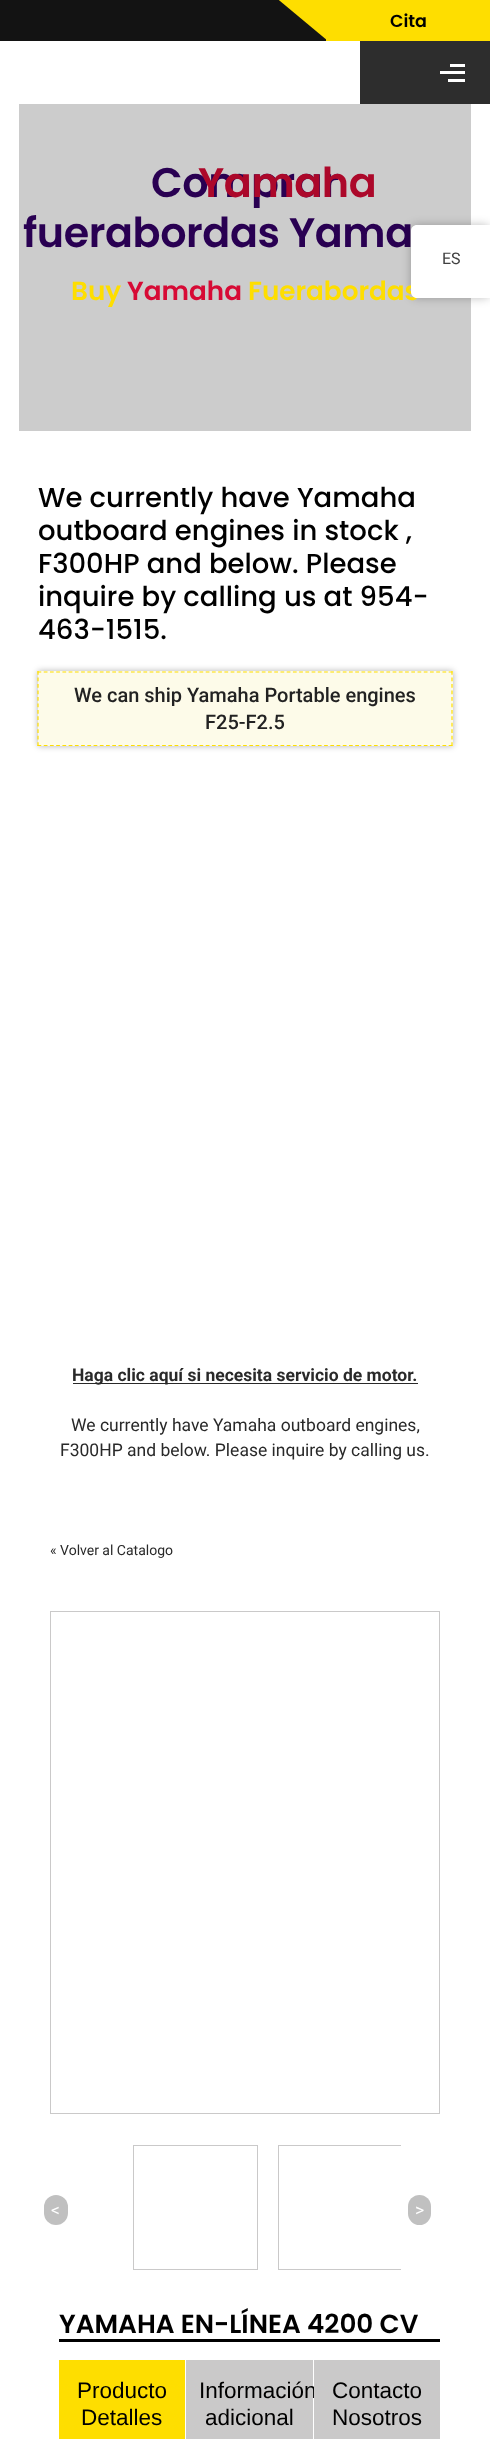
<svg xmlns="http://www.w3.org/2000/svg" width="490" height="2439">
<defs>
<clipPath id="clip1"><rect x="70" y="2133" width="331" height="157"/></clipPath>
</defs>
<rect width="100%" height="100%" fill="#fff"/>
<rect x="19" y="104" width="452" height="327" fill="#ccc"/>
<rect width="326" height="41" fill="#131313"/>
<rect x="326" width="164" height="41" fill="#fede00"/>
<path d="M328-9v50l-60-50z" fill="#fede00"/>
<text x="390" y="27" style="font-family:Poppins;font-size:17.5px;font-weight:600;fill:#000">Cita</text>
<rect x="360" y="41" width="130" height="63" fill="#2d2d2d"/>
<rect x="450" y="64" width="15" height="3" fill="#fff"/>
<rect x="440" y="71" width="25" height="3" fill="#fff"/>
<rect x="448" y="79" width="17" height="3" fill="#fff"/>
<text x="151" y="197" style="font-family:Poppins;font-size:41.25px;font-weight:600;letter-spacing:-0.4px;fill:#290052">Comprar</text>
<text x="198" y="197" style="font-family:Poppins;font-size:41.25px;font-weight:600;letter-spacing:-0.4px;fill:#ac082a">Yamaha</text>
<text x="23" y="247" style="font-family:Poppins;font-size:41.25px;font-weight:600;letter-spacing:-0.4px;fill:#290052">fuerabordas Yama</text>
<rect x="411" y="225" width="79" height="73" rx="6" fill="#00000040" filter="blur(5px)"/>
<text x="248" y="300" style="font-family:Poppins;font-size:26.25px;font-weight:600;fill:#fede00">Fuerabordas</text>
<path d="M417 225h73v73h-73c-3.5 0-6-2.5-6-6v-61c0-3.5 2.5-6 6-6z" fill="#fff"/>
<text x="442" y="264" style="font-family:Roboto;font-size:16px;fill:#404040">ES</text>
<text x="71" y="300" style="font-family:Poppins;font-size:26.25px;font-weight:600;fill:#fede00">Buy</text>
<text x="127" y="300" style="font-family:Poppins;font-size:26.25px;font-weight:600;fill:#d70a35">Yamaha</text>
<text x="38" y="507" style="font-family:Poppins;font-size:27.5px;font-weight:500;fill:#000">We currently have Yamaha</text>
<text x="38" y="540" style="font-family:Poppins;font-size:27.5px;font-weight:500;fill:#000">outboard engines in stock ,</text>
<text x="38" y="573" style="font-family:Poppins;font-size:27.5px;font-weight:500;fill:#000">F300HP and below. Please</text>
<text x="38" y="606" style="font-family:Poppins;font-size:27.5px;font-weight:500;fill:#000">inquire by calling us at 954-</text>
<text x="38" y="639" style="font-family:Poppins;font-size:27.5px;font-weight:500;fill:#000">463-1515.</text>
<rect x="38" y="671" width="415" height="75" fill="#0000004d" filter="blur(3px)"/>
<rect x="38" y="671" width="415" height="75" fill="#fdfbe9"/>
<path d="M37.5 672h415" fill="none" stroke="#fede00" stroke-width="1.2" stroke-dasharray="3.75 2.48"/>
<path d="M452 671v75" fill="none" stroke="#fede00" stroke-width="1.2" stroke-dasharray="3.75 2.73"/>
<path d="M37.5 745.5h415" fill="none" stroke="#fede00" stroke-width="1.2" stroke-dasharray="3.75 2.48"/>
<path d="M38 671v75" fill="none" stroke="#fede00" stroke-width="1.2" stroke-dasharray="3.75 2.73"/>
<text x="74" y="702" style="font-family:Roboto;font-size:20px;font-weight:500;fill:#222">We can ship Yamaha Portable engines</text>
<text x="205" y="729" style="font-family:Roboto;font-size:20px;font-weight:500;fill:#222">F25-F2.5</text>
<rect x="73" y="1383" width="345" height="1" fill="#292929"/>
<text x="72" y="1381" style="font-family:Roboto;font-size:17.5px;font-weight:bold;fill:#292929">Haga clic aquí si necesita servicio de motor.</text>
<text x="71" y="1431" style="font-family:Roboto;font-size:17.5px;fill:#292929">We currently have Yamaha outboard engines,</text>
<text x="60" y="1456" style="font-family:Roboto;font-size:17.5px;fill:#292929">F300HP and below. Please inquire by calling us.</text>
<text x="50" y="1555" style="font-family:Roboto;font-size:14px;fill:#292929">« Volver al Catalogo</text>
<rect x="50.5" y="1611.5" width="389" height="502" fill="none" stroke="#cac9c9"/>
<rect x="44" y="2195" width="24" height="30" rx="12" fill="#c0c0c0"/>
<text x="51" y="2216" style="font-family:Roboto;font-size:17.5px;fill:#fff">&lt;</text>
<rect x="133.5" y="2145.5" width="124" height="124" fill="none" stroke="#cac9c9"/>
<g clip-path="url(#clip1)">
<rect x="278.5" y="2145.5" width="124" height="124" fill="none" stroke="#cac9c9"/>
</g>
<rect x="408" y="2195" width="23" height="30" rx="11.5" fill="#c0c0c0"/>
<text x="415" y="2216" style="font-family:Roboto;font-size:17.5px;fill:#fff">&gt;</text>
<rect x="59" y="2339" width="381" height="3" fill="#000"/>
<text x="59" y="2333" style="font-family:Poppins;font-size:26.25px;font-weight:600;fill:#000">YAMAHA EN-LÍNEA 4200 CV</text>
<rect x="59" y="2360" width="126" height="79" fill="#fede00"/>
<text x="77" y="2398" style="font-family:Liberation Sans;font-size:22.5px;fill:#000">Producto</text>
<text x="81" y="2425" style="font-family:Liberation Sans;font-size:22.5px;fill:#000">Detalles</text>
<rect x="186" y="2360" width="127" height="79" fill="#cac9c9"/>
<text x="199" y="2398" style="font-family:Liberation Sans;font-size:22.5px;fill:#000">Información</text>
<text x="205" y="2425" style="font-family:Liberation Sans;font-size:22.5px;fill:#000">adicional</text>
<rect x="314" y="2360" width="126" height="79" fill="#cac9c9"/>
<text x="332" y="2398" style="font-family:Liberation Sans;font-size:22.5px;fill:#000">Contacto</text>
<text x="332" y="2425" style="font-family:Liberation Sans;font-size:22.5px;fill:#000">Nosotros</text>
</svg>
